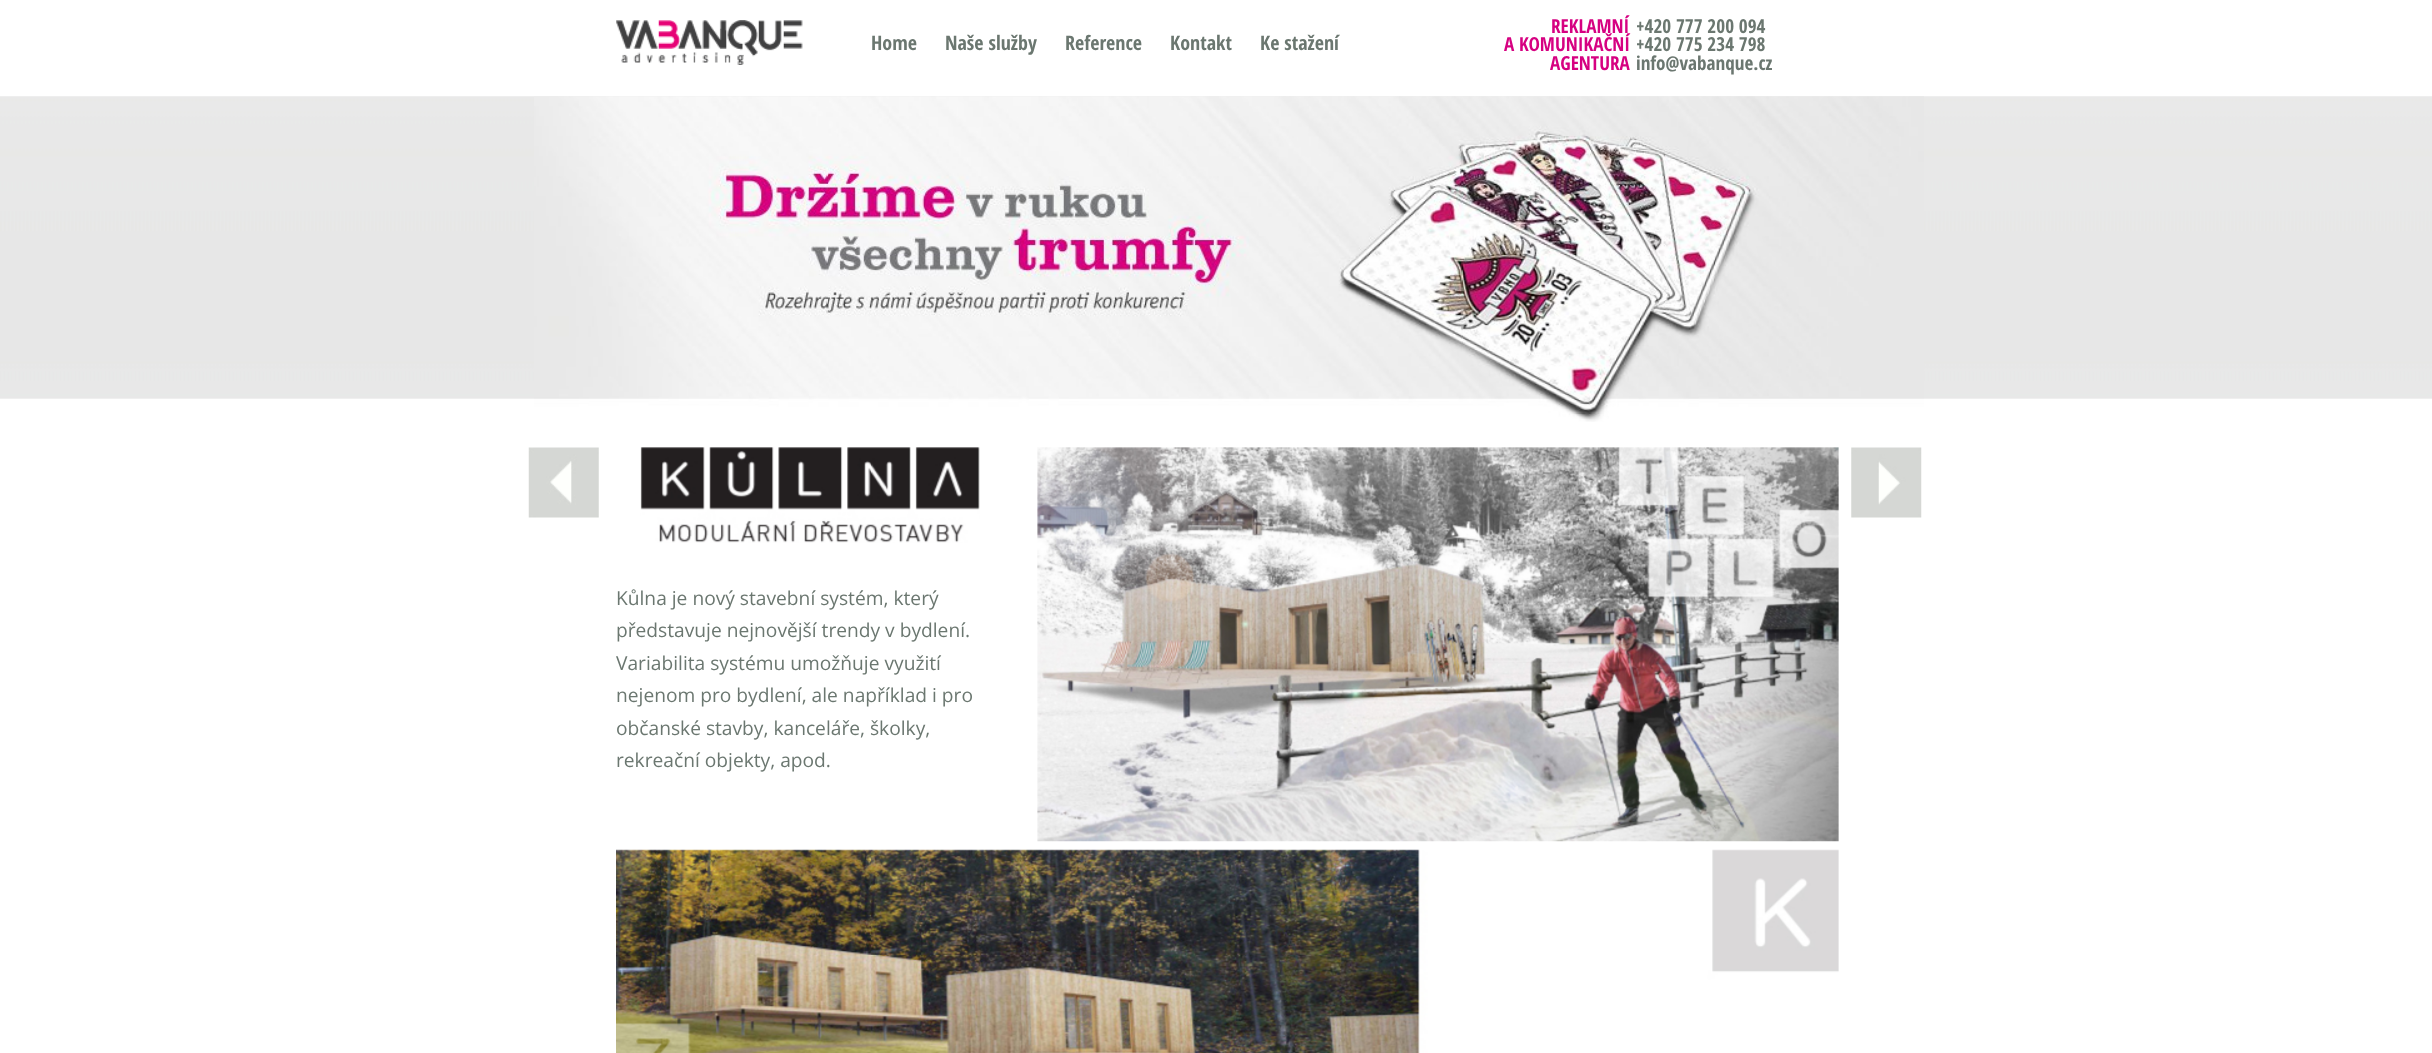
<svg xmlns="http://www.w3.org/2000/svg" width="2432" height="1053">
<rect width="100%" height="100%" fill="#fff"/>
<image x="616" y="20" width="187" height="45" href="media/1.png"/>
<text x="871" y="50" style="font-family:Open Sans Condensed;font-size:20px;font-weight:bold;fill:#6b7770">Home</text>
<text x="945" y="50" style="font-family:Open Sans Condensed;font-size:20px;font-weight:bold;fill:#6b7770">Naše služby</text>
<text x="1065" y="50" style="font-family:Open Sans Condensed;font-size:20px;font-weight:bold;fill:#6b7770">Reference</text>
<text x="1170" y="50" style="font-family:Open Sans Condensed;font-size:20px;font-weight:bold;fill:#6b7770">Kontakt</text>
<text x="1260" y="50" style="font-family:Open Sans Condensed;font-size:20px;font-weight:bold;fill:#6b7770">Ke stažení</text>
<text x="1551" y="33" style="font-family:Open Sans Condensed;font-size:19.2px;font-weight:bold;fill:#d60181">REKLAMNÍ</text>
<text x="1504" y="51" style="font-family:Open Sans Condensed;font-size:19.2px;font-weight:bold;fill:#d60181">A KOMUNIKAČNÍ</text>
<text x="1550" y="70" style="font-family:Open Sans Condensed;font-size:19.2px;font-weight:bold;fill:#d60181">AGENTURA</text>
<text x="1636" y="33" style="font-family:Open Sans Condensed;font-size:19.2px;font-weight:bold;fill:#6b7770">+420 777 200 094</text>
<text x="1636" y="51" style="font-family:Open Sans Condensed;font-size:19.2px;font-weight:bold;fill:#6b7770">+420 775 234 798</text>
<text x="1636" y="70" style="font-family:Open Sans Condensed;font-size:19.2px;font-weight:bold;fill:#6b7770">info@vabanque.cz</text>
<image x="0" y="96" width="2432" height="303" href="media/2.png"/>
<image x="534" y="96" width="1390" height="326" href="media/3.png"/>
<image x="528" y="447" width="71" height="71" href="media/4.png"/>
<image x="1851" y="447" width="71" height="71" href="media/5.png"/>
<image x="640" y="447" width="340" height="96" href="media/6.png"/>
<text x="616" y="605" style="font-family:Open Sans;font-size:19.2px;fill:#6b7770">Kůlna je nový stavební systém, který</text>
<text x="616" y="637" style="font-family:Open Sans;font-size:19.2px;fill:#6b7770">představuje nejnovější trendy v bydlení.</text>
<text x="616" y="670" style="font-family:Open Sans;font-size:19.2px;fill:#6b7770">Variabilita systému umožňuje využití</text>
<text x="616" y="702" style="font-family:Open Sans;font-size:19.2px;fill:#6b7770">nejenom pro bydlení, ale například i pro</text>
<text x="616" y="735" style="font-family:Open Sans;font-size:19.2px;fill:#6b7770">občanské stavby, kanceláře, školky,</text>
<text x="616" y="767" style="font-family:Open Sans;font-size:19.2px;fill:#6b7770">rekreační objekty, apod.</text>
<image x="1037" y="447" width="802" height="395" href="media/7.png"/>
<image x="616" y="849" width="1223" height="204" href="media/8.png"/>
</svg>
